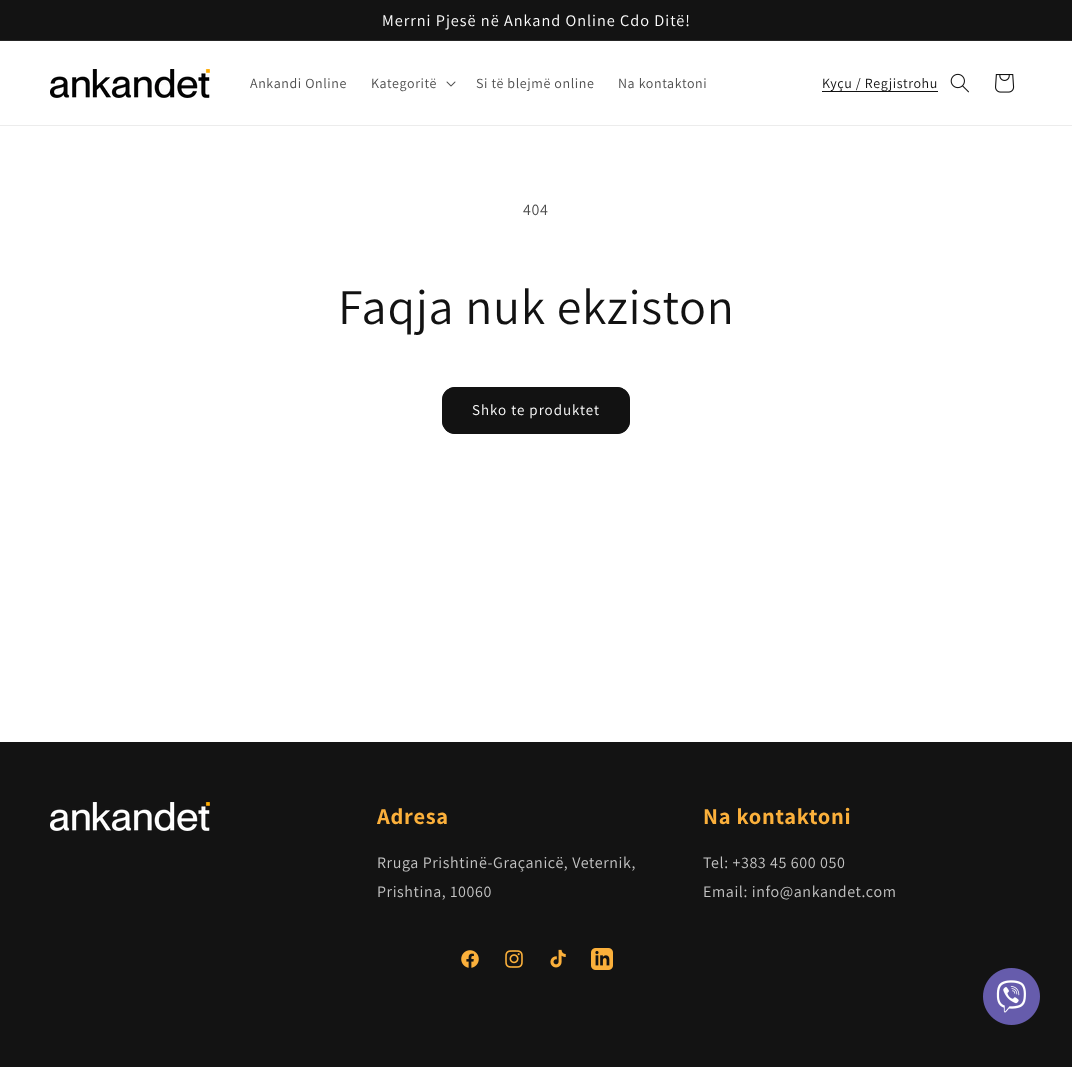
<svg xmlns="http://www.w3.org/2000/svg" width="1072" height="1067">
<rect width="100%" height="100%" fill="#fff"/>
<rect width="1072" height="40" fill="#131313"/>
<rect y="40" width="1072" height="1" fill="#262626"/>
<text x="382" y="26" style="font-family:Assistant;font-size:16.25px;letter-spacing:1px;fill:#fff">Merrni Pjesë në Ankand Online Çdo Ditë!</text>
<rect y="125" width="1072" height="1" fill="#ececec"/>
<image x="50" y="69" width="160" height="29" href="media/1.png"/>
<text x="250" y="88" style="font-family:Assistant;font-size:14px;letter-spacing:0.6px;fill:#4d4d4d">Ankandi Online</text>
<text x="371" y="88" style="font-family:Assistant;font-size:14px;letter-spacing:0.6px;fill:#4d4d4d">Kategoritë</text>
<image x="446" y="81" width="10" height="6" href="media/2.png"/>
<text x="476" y="88" style="font-family:Assistant;font-size:14px;letter-spacing:0.6px;fill:#4d4d4d">Si të blejmë online</text>
<text x="618" y="88" style="font-family:Assistant;font-size:14px;letter-spacing:0.6px;fill:#4d4d4d">Na kontaktoni</text>
<rect x="822" y="91" width="116" height="1" fill="#121212"/>
<text x="822" y="88" style="font-family:Assistant;font-size:14px;letter-spacing:0.6px;fill:#121212">Kyçu / Regjistrohu</text>
<image x="950" y="73" width="19" height="20" href="media/3.png"/>
<image x="995" y="74" width="20" height="19" href="media/4.png"/>
<text x="523" y="215" style="font-family:Assistant;font-size:16px;letter-spacing:0.6px;fill:#4d4d4d">404</text>
<text x="338" y="324" style="font-family:Assistant;font-size:50px;letter-spacing:0.75px;fill:#121212">Faqja nuk ekziston</text>
<rect x="442" y="387" width="188" height="47" rx="13" fill="#121212"/>
<rect x="442.5" y="387.5" width="187" height="46" rx="12.5" fill="none" stroke="#121212"/>
<text x="472" y="415" style="font-family:Assistant;font-size:15px;letter-spacing:1px;fill:#fff">Shko te produktet</text>
<rect y="742" width="1072" height="325" fill="#131313"/>
<image x="50" y="802" width="160" height="29" href="media/5.png"/>
<text x="377" y="824" style="font-family:Assistant;font-size:22.5px;font-weight:bold;letter-spacing:0.75px;fill:#fbb03b">Adresa</text>
<text x="377" y="868" style="font-family:Assistant;font-size:16px;letter-spacing:0.6px;fill:#c4c4c4">Rruga Prishtinë-Graçanicë, Veternik,</text>
<text x="377" y="897" style="font-family:Assistant;font-size:16px;letter-spacing:0.6px;fill:#c4c4c4">Prishtina, 10060</text>
<text x="703" y="824" style="font-family:Assistant;font-size:22.5px;font-weight:bold;letter-spacing:0.75px;fill:#fbb03b">Na kontaktoni</text>
<text x="703" y="868" style="font-family:Assistant;font-size:16px;letter-spacing:0.6px;fill:#c4c4c4">Tel: +383 45 600 050</text>
<text x="703" y="897" style="font-family:Assistant;font-size:16px;letter-spacing:0.6px;fill:#c4c4c4">Email: info@ankandet.com</text>
<image x="461" y="950" width="18" height="18" href="media/6.png"/>
<image x="505" y="950" width="18" height="18" href="media/7.png"/>
<image x="550" y="949" width="16" height="19" href="media/8.png"/>
<image x="591" y="948" width="22" height="22" href="media/9.png"/>
<image x="983" y="968" width="57" height="57" href="media/10.png"/>
</svg>
